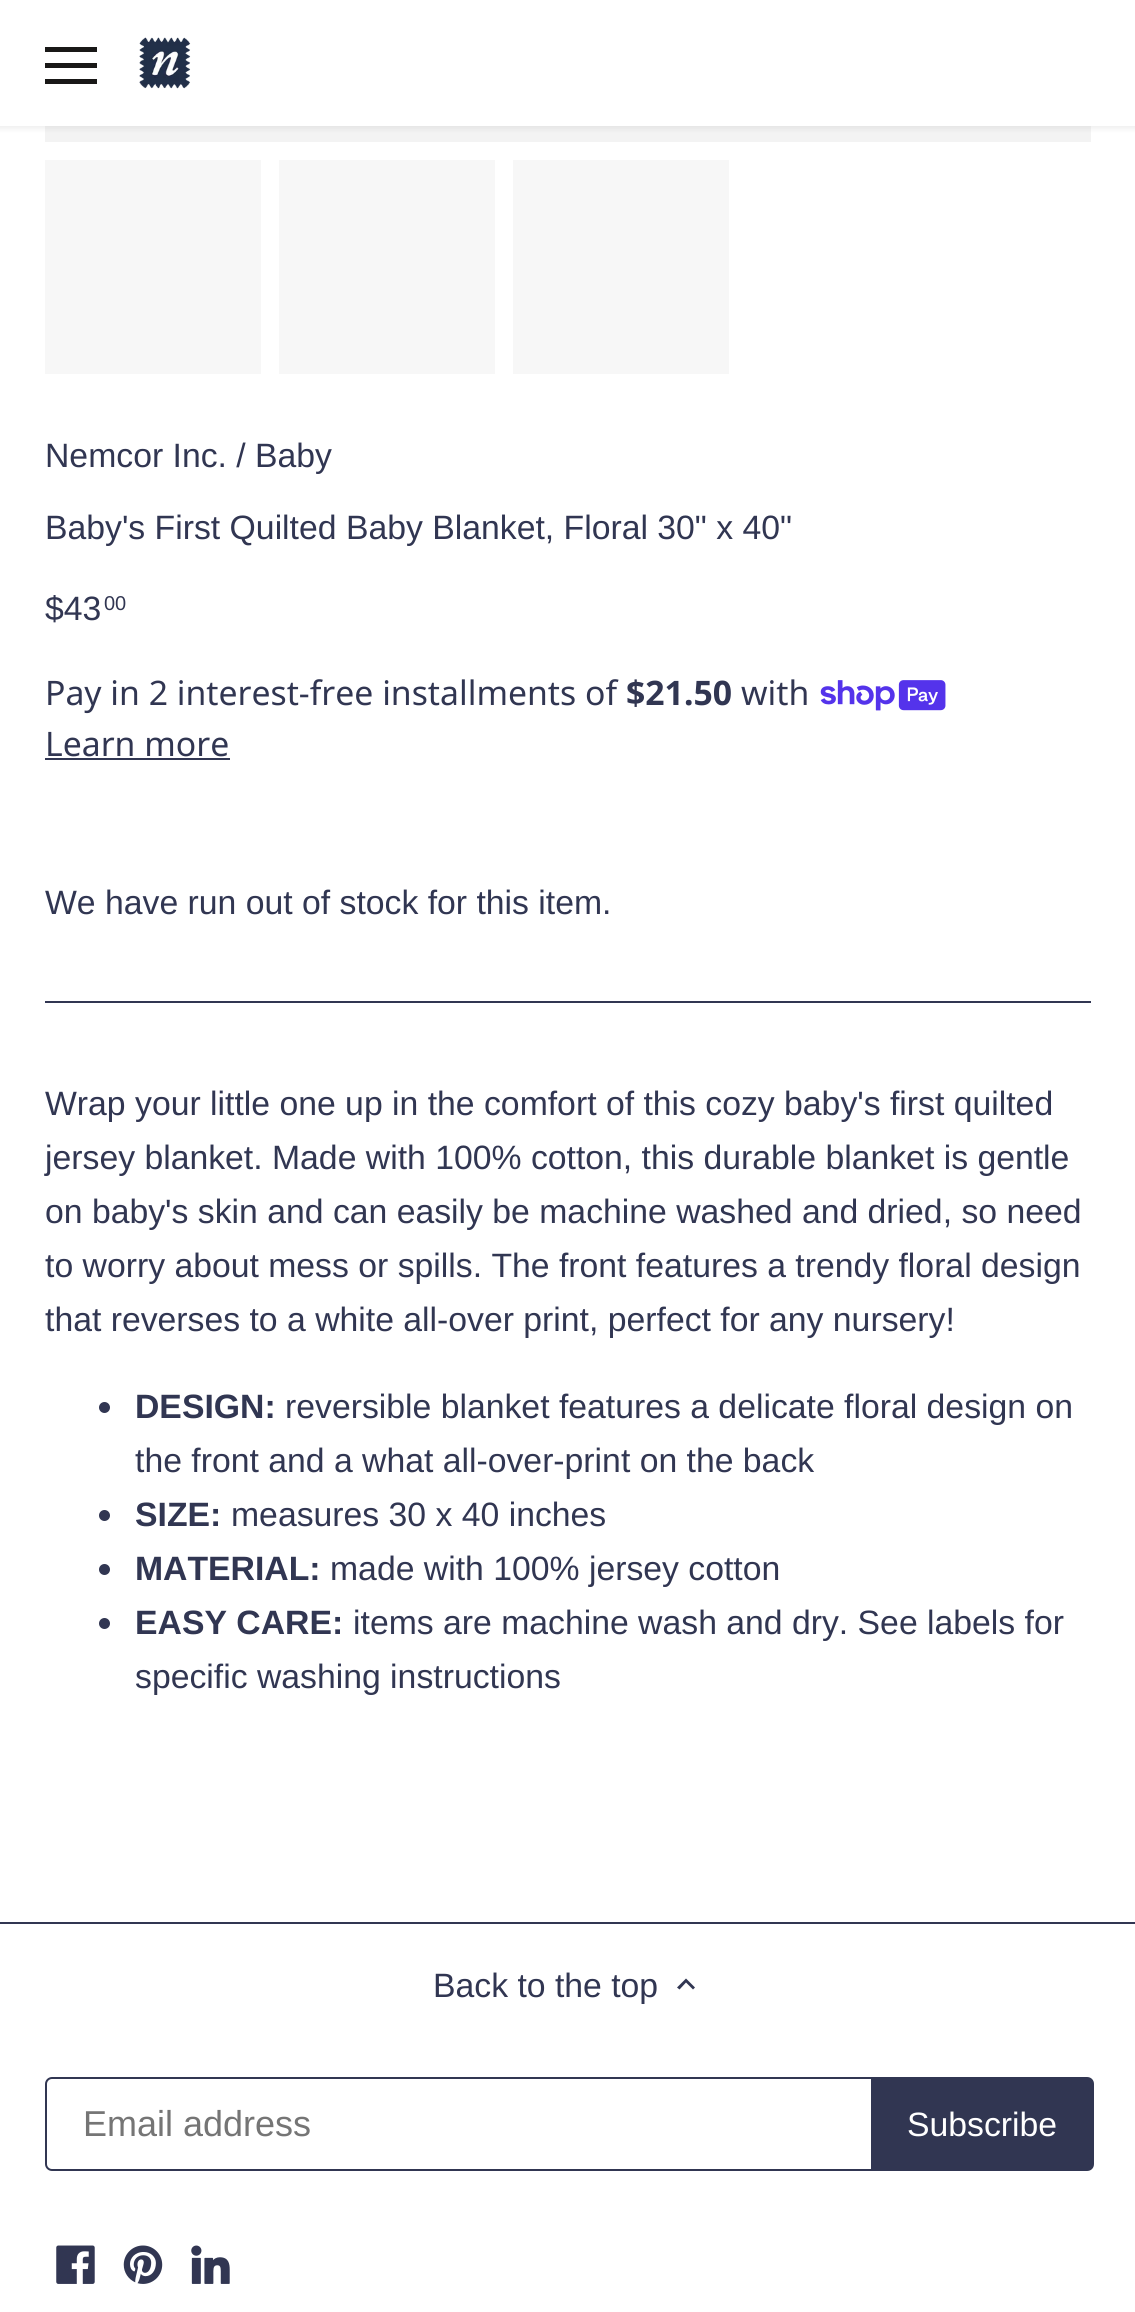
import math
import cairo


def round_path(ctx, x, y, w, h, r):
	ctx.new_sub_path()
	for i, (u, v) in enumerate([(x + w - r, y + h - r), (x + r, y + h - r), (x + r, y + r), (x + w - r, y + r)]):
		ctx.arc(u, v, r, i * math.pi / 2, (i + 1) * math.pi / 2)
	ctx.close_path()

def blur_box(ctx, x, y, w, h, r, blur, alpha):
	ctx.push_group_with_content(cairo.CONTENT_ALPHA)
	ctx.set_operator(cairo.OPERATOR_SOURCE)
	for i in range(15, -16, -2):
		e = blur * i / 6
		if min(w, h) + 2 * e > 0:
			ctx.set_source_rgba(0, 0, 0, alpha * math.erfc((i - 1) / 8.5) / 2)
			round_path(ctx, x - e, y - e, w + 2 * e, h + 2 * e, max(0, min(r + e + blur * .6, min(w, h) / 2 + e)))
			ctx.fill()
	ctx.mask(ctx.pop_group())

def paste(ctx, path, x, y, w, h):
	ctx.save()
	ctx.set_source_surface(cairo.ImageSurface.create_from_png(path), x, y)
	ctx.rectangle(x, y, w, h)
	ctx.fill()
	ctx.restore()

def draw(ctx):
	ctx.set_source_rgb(1, 1, 1)
	ctx.paint()
	ctx.set_source_rgb(0.953, 0.953, 0.953)
	ctx.rectangle(45, 126, 1046, 16)
	ctx.fill()
	ctx.set_source_rgb(0, 0, 0)
	blur_box(ctx, -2, -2, 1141, 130, 0, 3.5, 0.08)
	ctx.set_source_rgb(1, 1, 1)
	ctx.rectangle(0, 0, 1135, 126)
	ctx.fill()
	ctx.set_source_rgb(0.098, 0.094, 0.09)
	ctx.rectangle(45, 47, 52, 5)
	ctx.rectangle(45, 63, 52, 5)
	ctx.rectangle(45, 79, 52, 5)
	ctx.fill()
	paste(ctx, 'media/1.png', 139, 37, 52, 52)
	ctx.set_source_rgb(0.965, 0.965, 0.965)
	ctx.rectangle(45, 160, 216, 214)
	ctx.rectangle(279, 160, 216, 214)
	ctx.rectangle(513, 160, 216, 214)
	ctx.fill()
	ctx.select_font_face('Liberation Sans')
	ctx.set_font_size(33.75)
	ctx.set_source_rgb(0.192, 0.212, 0.322)
	for x, y, s in [
		(45, 467, 'Nemcor Inc. / Baby'),
		(45, 539, 'Baby\'s First Quilted Baby Blanket, Floral 30" x 40"'),
		(45, 620, '$43'),
	]:
		ctx.move_to(x, y)
		ctx.show_text(s)
	ctx.set_font_size(20)
	ctx.move_to(104, 610)
	ctx.show_text('00')
	ctx.select_font_face('Noto Sans')
	ctx.set_font_size(33.75)
	ctx.move_to(45, 705)
	ctx.show_text('Pay in 2 interest-free installments of')
	ctx.select_font_face('Noto Sans', cairo.FONT_SLANT_NORMAL, cairo.FONT_WEIGHT_BOLD)
	ctx.move_to(626, 705)
	ctx.show_text('$21.50')
	ctx.select_font_face('Noto Sans')
	ctx.move_to(741, 705)
	ctx.show_text('with')
	paste(ctx, 'media/2.png', 820, 680, 126, 31)
	ctx.move_to(45, 756)
	ctx.show_text('Learn more')
	ctx.rectangle(45, 758, 185, 2)
	ctx.fill()
	ctx.select_font_face('Liberation Sans')
	ctx.move_to(45, 914)
	ctx.show_text('We have run out of stock for this item.')
	ctx.rectangle(45, 1001, 1046, 2)
	ctx.fill()
	for x, y, s in [
		(45, 1115, 'Wrap your little one up in the comfort of this cozy baby\'s first quilted'),
		(45, 1169, 'jersey blanket. Made with 100% cotton, this durable blanket is gentle'),
		(45, 1223, 'on baby\'s skin and can easily be machine washed and dried, so need'),
		(45, 1277, 'to worry about mess or spills. The front features a trendy floral design'),
		(45, 1331, 'that reverses to a white all-over print, perfect for any nursery!'),
	]:
		ctx.move_to(x, y)
		ctx.show_text(s)
	ctx.new_path()
	ctx.arc(104.5, 1407.5, 5.5, 0, 2 * math.pi)
	ctx.fill()
	ctx.select_font_face('Liberation Sans', cairo.FONT_SLANT_NORMAL, cairo.FONT_WEIGHT_BOLD)
	ctx.move_to(135, 1418)
	ctx.show_text('DESIGN:')
	ctx.select_font_face('Liberation Sans')
	ctx.move_to(285, 1418)
	ctx.show_text('reversible blanket features a delicate floral design on')
	ctx.move_to(135, 1472)
	ctx.show_text('the front and a what all-over-print on the back')
	ctx.new_path()
	ctx.arc(104.5, 1515.5, 5.5, 0, 2 * math.pi)
	ctx.fill()
	ctx.select_font_face('Liberation Sans', cairo.FONT_SLANT_NORMAL, cairo.FONT_WEIGHT_BOLD)
	ctx.move_to(135, 1526)
	ctx.show_text('SIZE:')
	ctx.select_font_face('Liberation Sans')
	ctx.move_to(231, 1526)
	ctx.show_text('measures 30 x 40 inches')
	ctx.new_path()
	ctx.arc(104.5, 1569.5, 5.5, 0, 2 * math.pi)
	ctx.fill()
	ctx.select_font_face('Liberation Sans', cairo.FONT_SLANT_NORMAL, cairo.FONT_WEIGHT_BOLD)
	ctx.move_to(135, 1580)
	ctx.show_text('MATERIAL:')
	ctx.select_font_face('Liberation Sans')
	ctx.move_to(330, 1580)
	ctx.show_text('made with 100% jersey cotton')
	ctx.new_path()
	ctx.arc(104.5, 1623.5, 5.5, 0, 2 * math.pi)
	ctx.fill()
	ctx.select_font_face('Liberation Sans', cairo.FONT_SLANT_NORMAL, cairo.FONT_WEIGHT_BOLD)
	ctx.move_to(135, 1634)
	ctx.show_text('EASY CARE:')
	ctx.select_font_face('Liberation Sans')
	ctx.move_to(353, 1634)
	ctx.show_text('items are machine wash and dry. See labels for')
	ctx.move_to(135, 1688)
	ctx.show_text('specific washing instructions')
	ctx.rectangle(0, 1922, 1135, 2)
	ctx.fill()
	ctx.move_to(433, 1997)
	ctx.show_text('Back to the top')
	ctx.new_path()
	ctx.move_to(679.5, 1989.5)
	ctx.line_to(686, 1982.5)
	ctx.line_to(693, 1989.5)
	ctx.line_to(695, 1987.5)
	ctx.line_to(686, 1978.5)
	ctx.line_to(677, 1987.5)
	ctx.close_path()
	ctx.fill()
	round_path(ctx, 46, 2078, 1044, 92, 6)
	ctx.stroke()
	ctx.set_font_size(36)
	ctx.set_source_rgb(0.459, 0.459, 0.459)
	ctx.move_to(83, 2136)
	ctx.show_text('Email address')
	ctx.set_source_rgb(0.192, 0.212, 0.322)
	ctx.new_path()
	ctx.move_to(872, 2078)
	ctx.line_to(1087, 2078)
	ctx.curve_to(1090.5, 2078, 1093, 2080.5, 1093, 2084)
	ctx.line_to(1093, 2164)
	ctx.curve_to(1093, 2167.5, 1090.5, 2170, 1087, 2170)
	ctx.line_to(872, 2170)
	ctx.close_path()
	ctx.fill_preserve()
	ctx.stroke()
	ctx.set_font_size(33.75)
	ctx.set_source_rgb(1, 1, 1)
	ctx.move_to(907, 2136)
	ctx.show_text('Subscribe')
	paste(ctx, 'media/3.png', 56, 2245, 39, 39)
	paste(ctx, 'media/4.png', 123, 2245, 40, 39)
	paste(ctx, 'media/5.png', 191, 2245, 39, 39)


surface = cairo.ImageSurface(cairo.FORMAT_RGB24, 1135, 2312)
ctx = cairo.Context(surface)
options = cairo.FontOptions()
options.set_hint_metrics(cairo.HINT_METRICS_OFF)
options.set_hint_style(cairo.HINT_STYLE_NONE)
ctx.set_font_options(options)
ctx.set_miter_limit(4)
draw(ctx)
surface.write_to_png('image.png')
